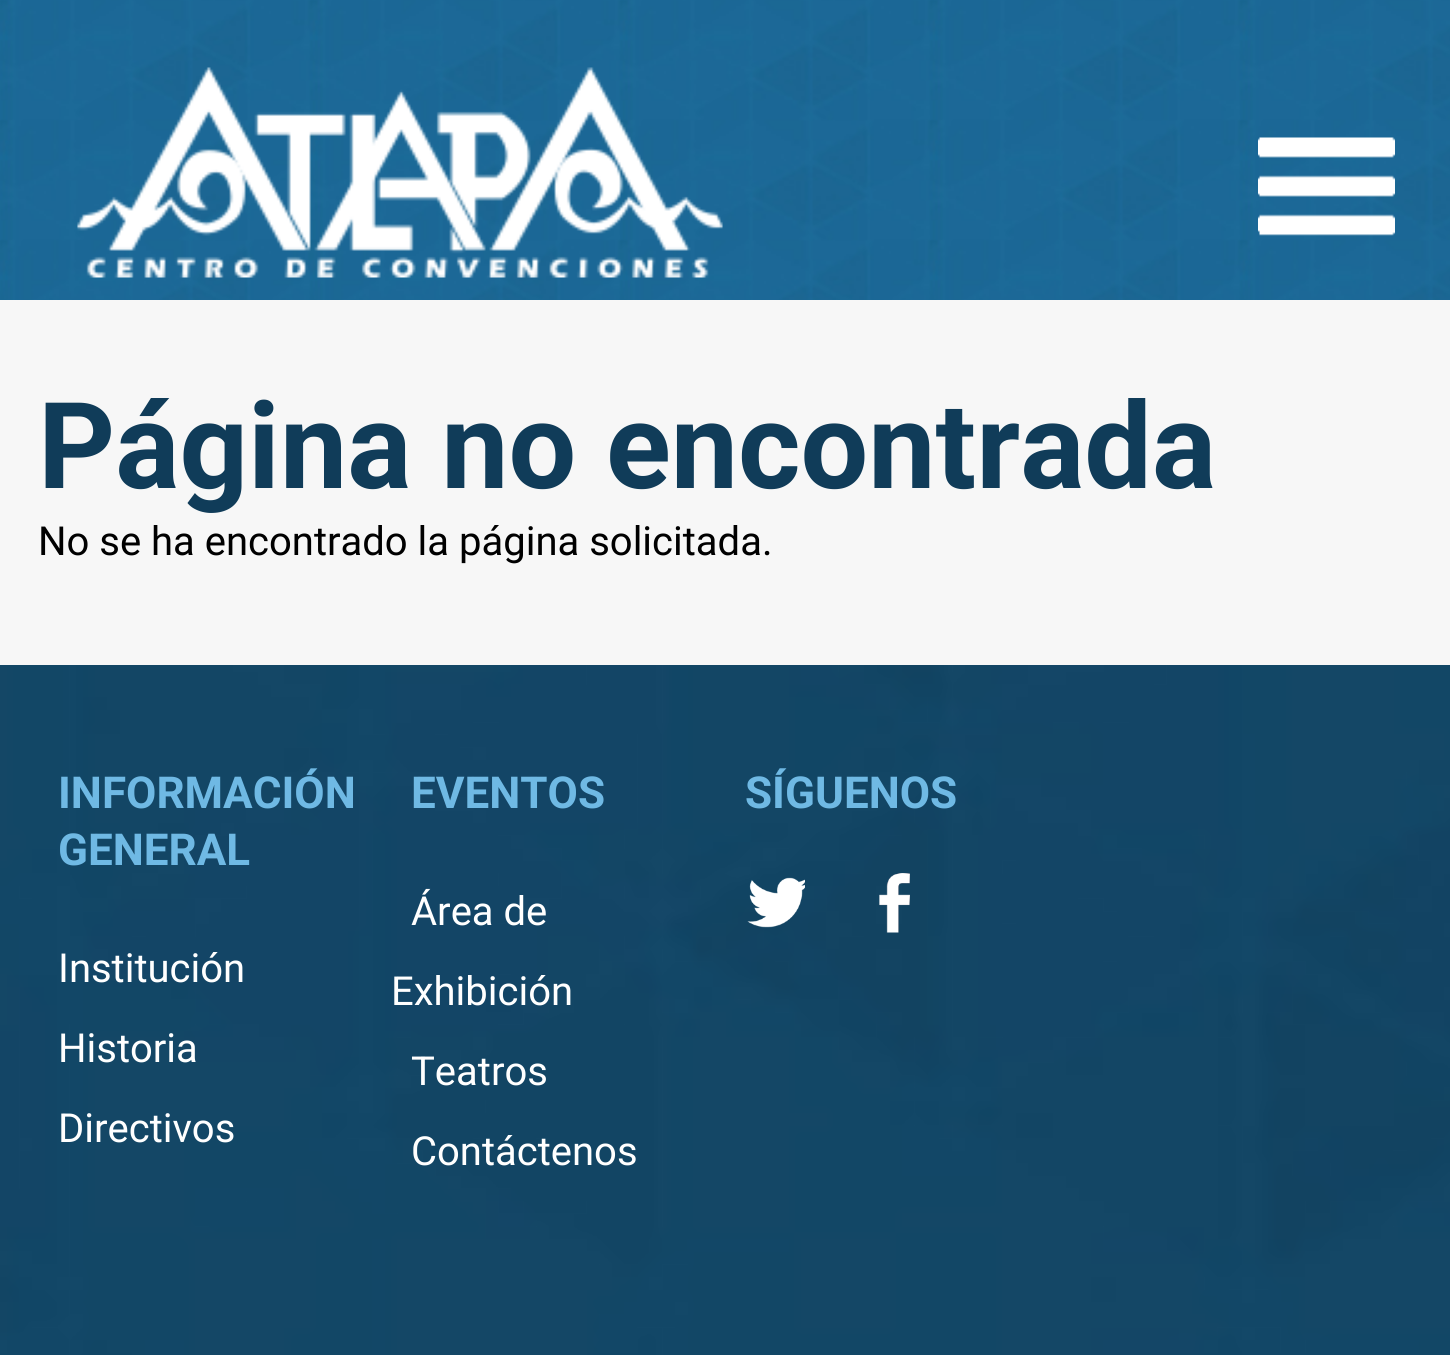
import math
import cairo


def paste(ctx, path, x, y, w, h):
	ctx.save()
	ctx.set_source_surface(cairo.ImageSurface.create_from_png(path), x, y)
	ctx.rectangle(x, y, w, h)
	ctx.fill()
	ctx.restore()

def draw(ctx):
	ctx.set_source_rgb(0.965, 0.965, 0.965)
	ctx.paint()
	paste(ctx, 'media/1.png', 0, 0, 1450, 300)
	paste(ctx, 'media/2.png', 77, 67, 646, 211)
	paste(ctx, 'media/3.png', 1258, 137, 137, 99)
	ctx.select_font_face('Roboto', cairo.FONT_SLANT_NORMAL, cairo.FONT_WEIGHT_BOLD)
	ctx.set_font_size(120)
	ctx.set_source_rgb(0.063, 0.235, 0.349)
	ctx.move_to(38, 488)
	ctx.show_text('Página no encontrada')
	ctx.select_font_face('Roboto')
	ctx.set_font_size(40)
	ctx.set_source_rgb(0, 0, 0)
	ctx.move_to(38, 555)
	ctx.show_text('No se ha encontrado la página solicitada.')
	paste(ctx, 'media/4.png', 0, 665, 1450, 690)
	ctx.select_font_face('Roboto', cairo.FONT_SLANT_NORMAL, cairo.FONT_WEIGHT_BOLD)
	ctx.set_font_size(44)
	ctx.set_source_rgb(0.435, 0.725, 0.894)
	ctx.move_to(58, 808)
	ctx.show_text('INFORMACIÓN')
	ctx.move_to(58, 865)
	ctx.show_text('GENERAL')
	ctx.select_font_face('Roboto')
	ctx.set_font_size(40)
	ctx.set_source_rgb(1, 1, 1)
	for x, y, s in [
		(58, 982, 'Institución'),
		(58, 1062, 'Historia'),
		(58, 1142, 'Directivos'),
	]:
		ctx.move_to(x, y)
		ctx.show_text(s)
	ctx.select_font_face('Roboto', cairo.FONT_SLANT_NORMAL, cairo.FONT_WEIGHT_BOLD)
	ctx.set_font_size(44)
	ctx.set_source_rgb(0.435, 0.725, 0.894)
	ctx.move_to(411, 808)
	ctx.show_text('EVENTOS')
	ctx.select_font_face('Roboto')
	ctx.set_font_size(40)
	ctx.set_source_rgb(1, 1, 1)
	for x, y, s in [
		(411, 925, 'Área de'),
		(391, 1005, 'Exhibición'),
		(411, 1085, 'Teatros'),
		(411, 1165, 'Contáctenos'),
	]:
		ctx.move_to(x, y)
		ctx.show_text(s)
	ctx.select_font_face('Roboto', cairo.FONT_SLANT_NORMAL, cairo.FONT_WEIGHT_BOLD)
	ctx.set_font_size(44)
	ctx.set_source_rgb(0.435, 0.725, 0.894)
	ctx.move_to(745, 808)
	ctx.show_text('SÍGUENOS')
	paste(ctx, 'media/5.png', 747, 877, 58, 51)
	paste(ctx, 'media/6.png', 879, 873, 31, 60)


surface = cairo.ImageSurface(cairo.FORMAT_RGB24, 1450, 1355)
ctx = cairo.Context(surface)
options = cairo.FontOptions()
options.set_hint_metrics(cairo.HINT_METRICS_OFF)
options.set_hint_style(cairo.HINT_STYLE_NONE)
ctx.set_font_options(options)
ctx.set_miter_limit(4)
draw(ctx)
surface.write_to_png('image.png')
